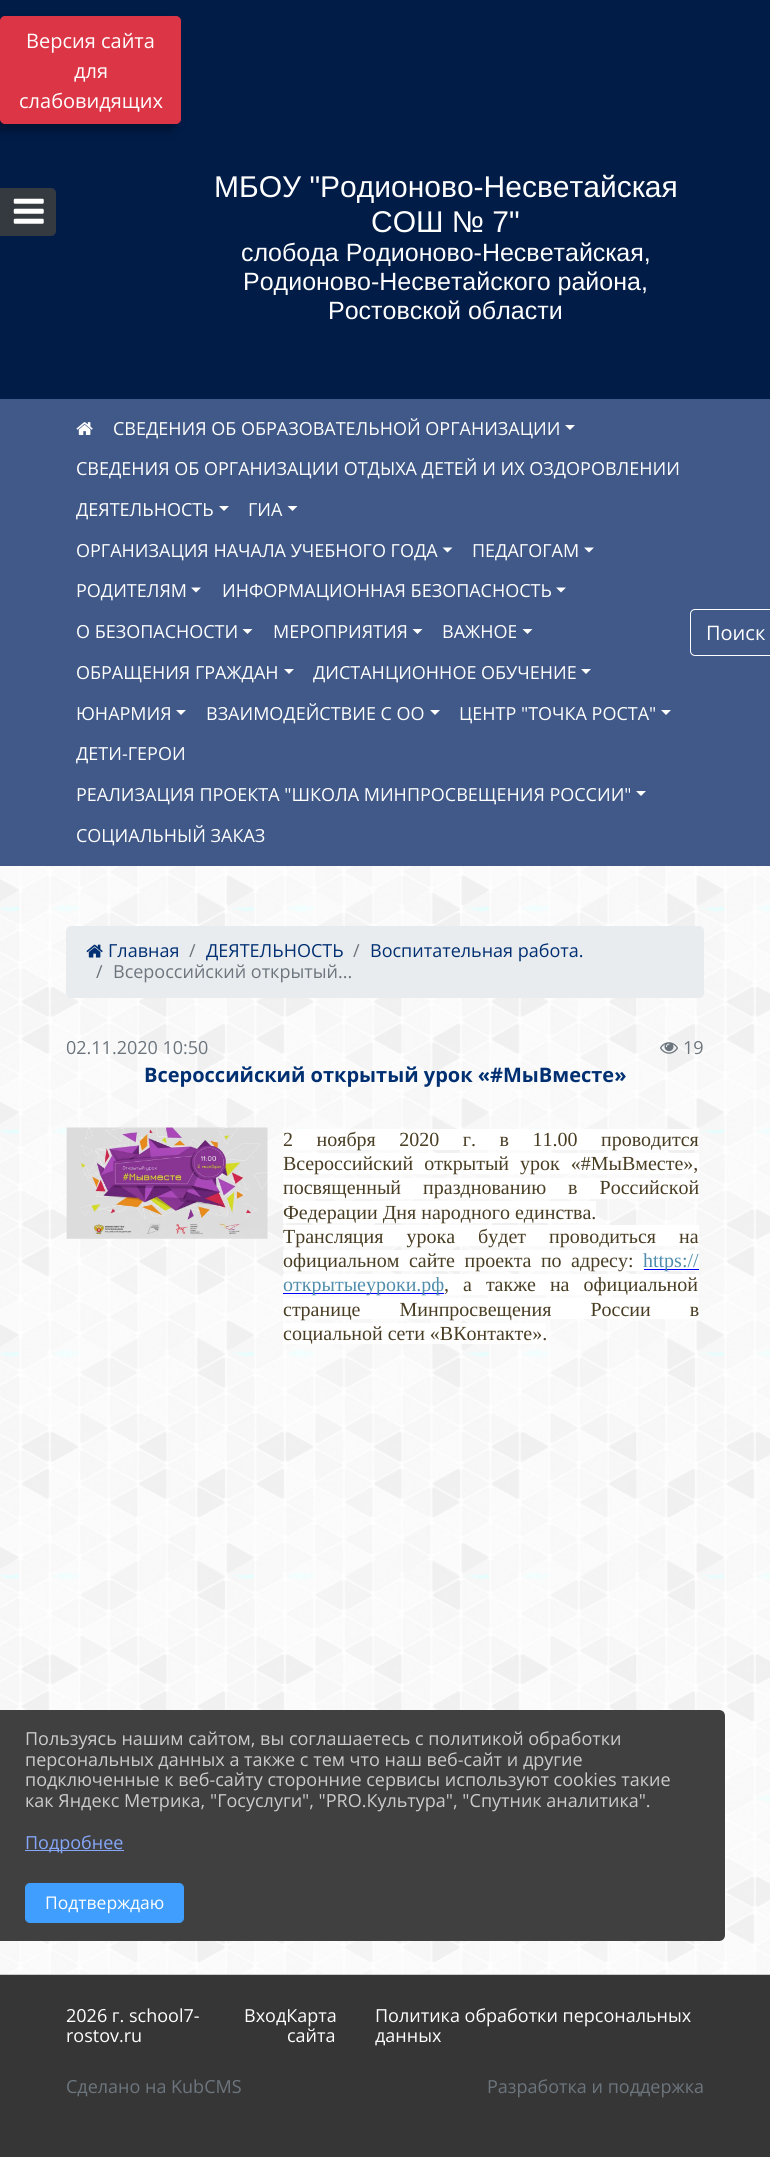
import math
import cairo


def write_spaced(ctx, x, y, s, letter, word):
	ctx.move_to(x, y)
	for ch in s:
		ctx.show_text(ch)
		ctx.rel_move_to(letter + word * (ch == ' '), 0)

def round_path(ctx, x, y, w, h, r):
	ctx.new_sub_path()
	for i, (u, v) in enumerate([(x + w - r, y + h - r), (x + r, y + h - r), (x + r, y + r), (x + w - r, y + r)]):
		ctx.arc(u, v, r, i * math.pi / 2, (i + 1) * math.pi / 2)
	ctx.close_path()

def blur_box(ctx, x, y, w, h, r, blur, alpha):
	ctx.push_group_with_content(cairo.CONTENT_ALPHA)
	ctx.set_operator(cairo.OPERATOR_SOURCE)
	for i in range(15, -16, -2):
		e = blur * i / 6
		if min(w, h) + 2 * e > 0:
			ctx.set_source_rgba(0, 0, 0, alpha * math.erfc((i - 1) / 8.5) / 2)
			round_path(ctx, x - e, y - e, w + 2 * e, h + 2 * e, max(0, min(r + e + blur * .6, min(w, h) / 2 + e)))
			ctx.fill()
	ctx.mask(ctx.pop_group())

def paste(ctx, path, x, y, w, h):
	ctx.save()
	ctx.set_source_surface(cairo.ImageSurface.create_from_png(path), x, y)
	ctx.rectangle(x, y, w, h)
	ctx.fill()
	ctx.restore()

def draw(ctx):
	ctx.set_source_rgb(1, 1, 1)
	ctx.paint()
	paste(ctx, 'media/1.png', 0, 866, 770, 1108)
	ctx.set_source_rgb(0, 0.11, 0.278)
	ctx.rectangle(0, 0, 770, 399)
	ctx.fill()
	ctx.set_source_rgb(0, 0, 0)
	blur_box(ctx, -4, 25, 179, 105, 4, 5, 0.35)
	ctx.set_source_rgb(0.863, 0.208, 0.271)
	round_path(ctx, 0.5, 16.5, 180, 107, 4.5)
	ctx.fill_preserve()
	ctx.set_line_width(1)
	ctx.stroke()
	ctx.select_font_face('Open Sans')
	ctx.set_font_size(20)
	ctx.set_source_rgb(1, 1, 1)
	for x, y, s in [
		(26, 48, 'Версия сайта'),
		(74, 78, 'для'),
		(19, 108, 'слабовидящих'),
	]:
		ctx.move_to(x, y)
		ctx.show_text(s)
	ctx.set_source_rgb(0.204, 0.227, 0.251)
	ctx.new_path()
	ctx.move_to(0.5, 188.5)
	ctx.line_to(51, 188.5)
	ctx.curve_to(53.5, 188.5, 55.5, 190.5, 55.5, 193)
	ctx.line_to(55.5, 231)
	ctx.curve_to(55.5, 233.5, 53.5, 235.5, 51, 235.5)
	ctx.line_to(0.5, 235.5)
	ctx.close_path()
	ctx.fill_preserve()
	ctx.stroke()
	paste(ctx, 'media/2.png', 13, 198, 31, 26)
	ctx.select_font_face('Liberation Sans')
	ctx.set_font_size(30)
	ctx.set_source_rgb(1, 1, 1)
	ctx.move_to(214, 197)
	ctx.show_text('МБОУ "Родионово-Несветайская')
	ctx.move_to(371, 232)
	ctx.show_text('СОШ № 7"')
	ctx.set_font_size(25)
	for x, y, s in [
		(241, 261, 'слобода Родионово-Несветайская,'),
		(243, 290, 'Родионово-Несветайского района,'),
		(328, 319, 'Ростовской области'),
	]:
		ctx.move_to(x, y)
		ctx.show_text(s)
	ctx.set_source_rgb(0.251, 0.349, 0.533)
	ctx.rectangle(0, 399, 770, 467)
	ctx.fill()
	paste(ctx, 'media/3.png', 76, 422, 17, 13)
	ctx.select_font_face('Open Sans')
	ctx.set_font_size(18)
	ctx.set_source_rgb(1, 1, 1)
	ctx.move_to(113, 435)
	ctx.show_text('СВЕДЕНИЯ ОБ ОБРАЗОВАТЕЛЬНОЙ ОРГАНИЗАЦИИ')
	ctx.new_path()
	ctx.move_to(565, 425)
	ctx.line_to(575, 425)
	ctx.line_to(570, 430)
	ctx.close_path()
	ctx.fill()
	ctx.move_to(76, 475)
	ctx.show_text('СВЕДЕНИЯ ОБ ОРГАНИЗАЦИИ ОТДЫХА ДЕТЕЙ И ИХ ОЗДОРОВЛЕНИИ')
	ctx.move_to(76, 516)
	ctx.show_text('ДЕЯТЕЛЬНОСТЬ')
	ctx.new_path()
	ctx.move_to(219, 506)
	ctx.line_to(229, 506)
	ctx.line_to(224, 511)
	ctx.close_path()
	ctx.fill()
	ctx.move_to(248, 516)
	ctx.show_text('ГИА')
	ctx.new_path()
	ctx.move_to(287.5, 506)
	ctx.line_to(297.5, 506)
	ctx.line_to(292.5, 511)
	ctx.close_path()
	ctx.fill()
	ctx.move_to(76, 557)
	ctx.show_text('ОРГАНИЗАЦИЯ НАЧАЛА УЧЕБНОГО ГОДА')
	ctx.new_path()
	ctx.move_to(442.5, 547.5)
	ctx.line_to(452.5, 547.5)
	ctx.line_to(447.5, 552.5)
	ctx.close_path()
	ctx.fill()
	ctx.move_to(472, 557)
	ctx.show_text('ПЕДАГОГАМ')
	ctx.new_path()
	ctx.move_to(584, 547.5)
	ctx.line_to(594, 547.5)
	ctx.line_to(589, 552.5)
	ctx.close_path()
	ctx.fill()
	ctx.move_to(76, 597)
	ctx.show_text('РОДИТЕЛЯМ')
	ctx.new_path()
	ctx.move_to(191, 587.5)
	ctx.line_to(201, 587.5)
	ctx.line_to(196, 592.5)
	ctx.close_path()
	ctx.fill()
	ctx.move_to(222, 597)
	ctx.show_text('ИНФОРМАЦИОННАЯ БЕЗОПАСНОСТЬ')
	ctx.new_path()
	ctx.move_to(556, 587.5)
	ctx.line_to(566, 587.5)
	ctx.line_to(561, 592.5)
	ctx.close_path()
	ctx.fill()
	ctx.move_to(76, 638)
	ctx.show_text('О БЕЗОПАСНОСТИ')
	ctx.new_path()
	ctx.move_to(242.5, 629)
	ctx.line_to(252.5, 629)
	ctx.line_to(247.5, 634)
	ctx.close_path()
	ctx.fill()
	ctx.move_to(273, 638)
	ctx.show_text('МЕРОПРИЯТИЯ')
	ctx.new_path()
	ctx.move_to(412.5, 629)
	ctx.line_to(422.5, 629)
	ctx.line_to(417.5, 634)
	ctx.close_path()
	ctx.fill()
	ctx.move_to(442, 638)
	ctx.show_text('ВАЖНОЕ')
	ctx.new_path()
	ctx.move_to(522.5, 629)
	ctx.line_to(532.5, 629)
	ctx.line_to(527.5, 634)
	ctx.close_path()
	ctx.fill()
	ctx.move_to(76, 679)
	ctx.show_text('ОБРАЩЕНИЯ ГРАЖДАН')
	ctx.new_path()
	ctx.move_to(284, 669)
	ctx.line_to(294, 669)
	ctx.line_to(289, 674)
	ctx.close_path()
	ctx.fill()
	ctx.move_to(313, 679)
	ctx.show_text('ДИСТАНЦИОННОЕ ОБУЧЕНИЕ')
	ctx.new_path()
	ctx.move_to(581, 669)
	ctx.line_to(591, 669)
	ctx.line_to(586, 674)
	ctx.close_path()
	ctx.fill()
	ctx.move_to(76, 720)
	ctx.show_text('ЮНАРМИЯ')
	ctx.new_path()
	ctx.move_to(176, 710)
	ctx.line_to(186, 710)
	ctx.line_to(181, 715)
	ctx.close_path()
	ctx.fill()
	ctx.move_to(206, 720)
	ctx.show_text('ВЗАИМОДЕЙСТВИЕ С ОО')
	ctx.new_path()
	ctx.move_to(430, 710)
	ctx.line_to(440, 710)
	ctx.line_to(435, 715)
	ctx.close_path()
	ctx.fill()
	ctx.move_to(459, 720)
	ctx.show_text('ЦЕНТР "ТОЧКА РОСТА"')
	ctx.new_path()
	ctx.move_to(661, 710)
	ctx.line_to(671, 710)
	ctx.line_to(666, 715)
	ctx.close_path()
	ctx.fill()
	ctx.move_to(76, 760)
	ctx.show_text('ДЕТИ-ГЕРОИ')
	ctx.move_to(76, 801)
	ctx.show_text('РЕАЛИЗАЦИЯ ПРОЕКТА "ШКОЛА МИНПРОСВЕЩЕНИЯ РОССИИ"')
	ctx.new_path()
	ctx.move_to(636, 791)
	ctx.line_to(646, 791)
	ctx.line_to(641, 796)
	ctx.close_path()
	ctx.fill()
	ctx.move_to(76, 842)
	ctx.show_text('СОЦИАЛЬНЫЙ ЗАКАЗ')
	round_path(ctx, 690.5, 609.5, 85, 46, 4.5)
	ctx.stroke()
	ctx.set_font_size(20)
	ctx.move_to(706, 640)
	ctx.show_text('Поиск')
	ctx.set_source_rgb(0.914, 0.925, 0.937)
	round_path(ctx, 66, 926, 638, 72, 5)
	ctx.fill()
	paste(ctx, 'media/4.png', 86, 944, 17, 14)
	ctx.set_font_size(18)
	ctx.set_source_rgb(0, 0.184, 0.447)
	ctx.move_to(108, 957)
	ctx.show_text('Главная')
	ctx.set_source_rgb(0.424, 0.459, 0.49)
	ctx.move_to(189, 957)
	ctx.show_text('/')
	ctx.set_source_rgb(0, 0.184, 0.447)
	ctx.move_to(206, 957)
	ctx.show_text('ДЕЯТЕЛЬНОСТЬ')
	ctx.set_source_rgb(0.424, 0.459, 0.49)
	ctx.move_to(353, 957)
	ctx.show_text('/')
	ctx.set_source_rgb(0, 0.184, 0.447)
	ctx.move_to(370, 957)
	ctx.show_text('Воспитательная работа.')
	ctx.set_source_rgb(0.424, 0.459, 0.49)
	for x, y, s in [
		(96, 978, '/'),
		(113, 978, 'Всероссийский открытый...'),
		(66, 1054, '02.11.2020 10:50'),
	]:
		ctx.move_to(x, y)
		ctx.show_text(s)
	paste(ctx, 'media/5.png', 660, 1042, 18, 12)
	ctx.move_to(683, 1054)
	ctx.show_text('19')
	ctx.select_font_face('Open Sans', cairo.FONT_SLANT_NORMAL, cairo.FONT_WEIGHT_BOLD)
	ctx.set_font_size(20)
	ctx.set_source_rgb(0, 0.184, 0.447)
	ctx.move_to(144, 1082)
	ctx.show_text('Всероссийский открытый урок «#МыВместе»')
	paste(ctx, 'media/6.png', 66, 1127, 202, 112)
	ctx.set_source_rgb(1, 1, 1)
	ctx.rectangle(283, 1129, 416, 21)
	ctx.fill()
	ctx.select_font_face('Liberation Serif')
	ctx.set_source_rgb(0.286, 0.243, 0.141)
	write_spaced(ctx, 283, 1146, '2 ноября 2020 г. в 11.00 проводится', 0, 18.5)
	ctx.set_source_rgb(1, 1, 1)
	ctx.rectangle(283, 1153, 416, 21)
	ctx.fill()
	ctx.set_source_rgb(0.286, 0.243, 0.141)
	write_spaced(ctx, 283, 1170, 'Всероссийский открытый урок «#МыВместе»,', 0, 6)
	ctx.set_source_rgb(1, 1, 1)
	ctx.rectangle(283, 1178, 416, 21)
	ctx.fill()
	ctx.set_source_rgb(0.286, 0.243, 0.141)
	write_spaced(ctx, 283, 1194, 'посвященный празднованию в Российской', 0, 17)
	ctx.set_source_rgb(1, 1, 1)
	ctx.rectangle(283, 1201, 313, 22)
	ctx.fill()
	ctx.set_source_rgb(0.286, 0.243, 0.141)
	ctx.move_to(283, 1219)
	ctx.show_text('Федерации Дня народного единства.')
	ctx.set_source_rgb(1, 1, 1)
	ctx.rectangle(283, 1225, 416, 21)
	ctx.fill()
	ctx.set_source_rgb(0.286, 0.243, 0.141)
	write_spaced(ctx, 283, 1243, 'Трансляция урока будет проводиться на', 0, 18)
	ctx.set_source_rgb(1, 1, 1)
	ctx.rectangle(283, 1250, 416, 21)
	ctx.fill()
	ctx.set_source_rgb(0.286, 0.243, 0.141)
	write_spaced(ctx, 283, 1267, 'официальном сайте проекта по адресу:', 0, 4.5)
	ctx.set_source_rgb(0, 0, 1)
	ctx.rectangle(644, 1269, 55, 1)
	ctx.fill()
	ctx.set_source_rgb(0.318, 0.557, 0.678)
	ctx.move_to(643, 1267)
	ctx.show_text('https://')
	ctx.set_source_rgb(1, 1, 1)
	ctx.rectangle(283, 1274, 416, 21)
	ctx.fill()
	ctx.set_source_rgb(0, 0, 1)
	ctx.rectangle(283, 1293, 161, 1)
	ctx.fill()
	ctx.set_source_rgb(0.318, 0.557, 0.678)
	ctx.move_to(283, 1291)
	ctx.show_text('открытыеуроки.рф')
	ctx.set_source_rgb(0.286, 0.243, 0.141)
	write_spaced(ctx, 444, 1291, ', а также на официальной', 0, 9)
	ctx.set_source_rgb(1, 1, 1)
	ctx.rectangle(283, 1298, 416, 21)
	ctx.fill()
	ctx.set_source_rgb(0.286, 0.243, 0.141)
	write_spaced(ctx, 283, 1316, 'странице Минпросвещения России в', 0, 34)
	ctx.set_source_rgb(1, 1, 1)
	ctx.rectangle(283, 1323, 263, 21)
	ctx.fill()
	ctx.set_source_rgb(0.286, 0.243, 0.141)
	ctx.move_to(283, 1340)
	ctx.show_text('социальной сети «ВКонтакте».')
	ctx.set_source_rgb(0.216, 0.212, 0.212)
	ctx.rectangle(0, 1975, 770, 182)
	ctx.fill()
	ctx.set_source_rgb(0.8, 0.8, 0.8)
	ctx.rectangle(0, 1974, 770, 1)
	ctx.fill()
	ctx.select_font_face('Open Sans')
	ctx.set_font_size(18)
	ctx.set_source_rgb(1, 1, 1)
	for x, y, s in [
		(66, 2022, '2026 г. school7-'),
		(66, 2042, 'rostov.ru'),
		(244, 2022, 'ВходКарта'),
		(375, 2022, 'Политика обработки персональных'),
		(375, 2042, 'данных'),
		(287, 2042, 'сайта'),
	]:
		ctx.move_to(x, y)
		ctx.show_text(s)
	ctx.set_source_rgb(0.424, 0.459, 0.49)
	ctx.move_to(66, 2093)
	ctx.show_text('Сделано на KubCMS')
	ctx.move_to(487, 2093)
	ctx.show_text('Разработка и поддержка')
	ctx.set_source_rgb(0.251, 0.251, 0.251)
	ctx.new_path()
	ctx.move_to(0, 1710)
	ctx.line_to(719, 1710)
	ctx.curve_to(722.5, 1710, 725, 1712.5, 725, 1716)
	ctx.line_to(725, 1935)
	ctx.curve_to(725, 1938.5, 722.5, 1941, 719, 1941)
	ctx.line_to(0, 1941)
	ctx.close_path()
	ctx.fill()
	ctx.set_source_rgb(0.8, 0.8, 0.8)
	for x, y, s in [
		(25, 1745, 'Пользуясь нашим сайтом, вы соглашаетесь с политикой обработки'),
		(25, 1766, 'персональных данных а также с тем что наш веб-сайт и другие'),
		(25, 1786, 'подключенные к веб-сайту сторонние сервисы используют cookies такие'),
		(25, 1807, 'как Яндекс Метрика, "Госуслуги", "PRO.Культура", "Спутник аналитика".'),
	]:
		ctx.move_to(x, y)
		ctx.show_text(s)
	ctx.set_source_rgb(0.522, 0.651, 0.976)
	ctx.rectangle(25, 1850, 99, 1)
	ctx.fill()
	ctx.move_to(25, 1849)
	ctx.show_text('Подробнее')
	ctx.set_source_rgb(0.251, 0.62, 1)
	round_path(ctx, 25.5, 1883.5, 158, 39, 4.5)
	ctx.fill_preserve()
	ctx.stroke()
	ctx.set_font_size(17.5)
	ctx.set_source_rgb(1, 1, 1)
	ctx.move_to(45, 1909)
	ctx.show_text('Подтверждаю')


surface = cairo.ImageSurface(cairo.FORMAT_RGB24, 770, 2157)
ctx = cairo.Context(surface)
options = cairo.FontOptions()
options.set_hint_metrics(cairo.HINT_METRICS_OFF)
options.set_hint_style(cairo.HINT_STYLE_NONE)
ctx.set_font_options(options)
ctx.set_miter_limit(4)
draw(ctx)
surface.write_to_png('image.png')
